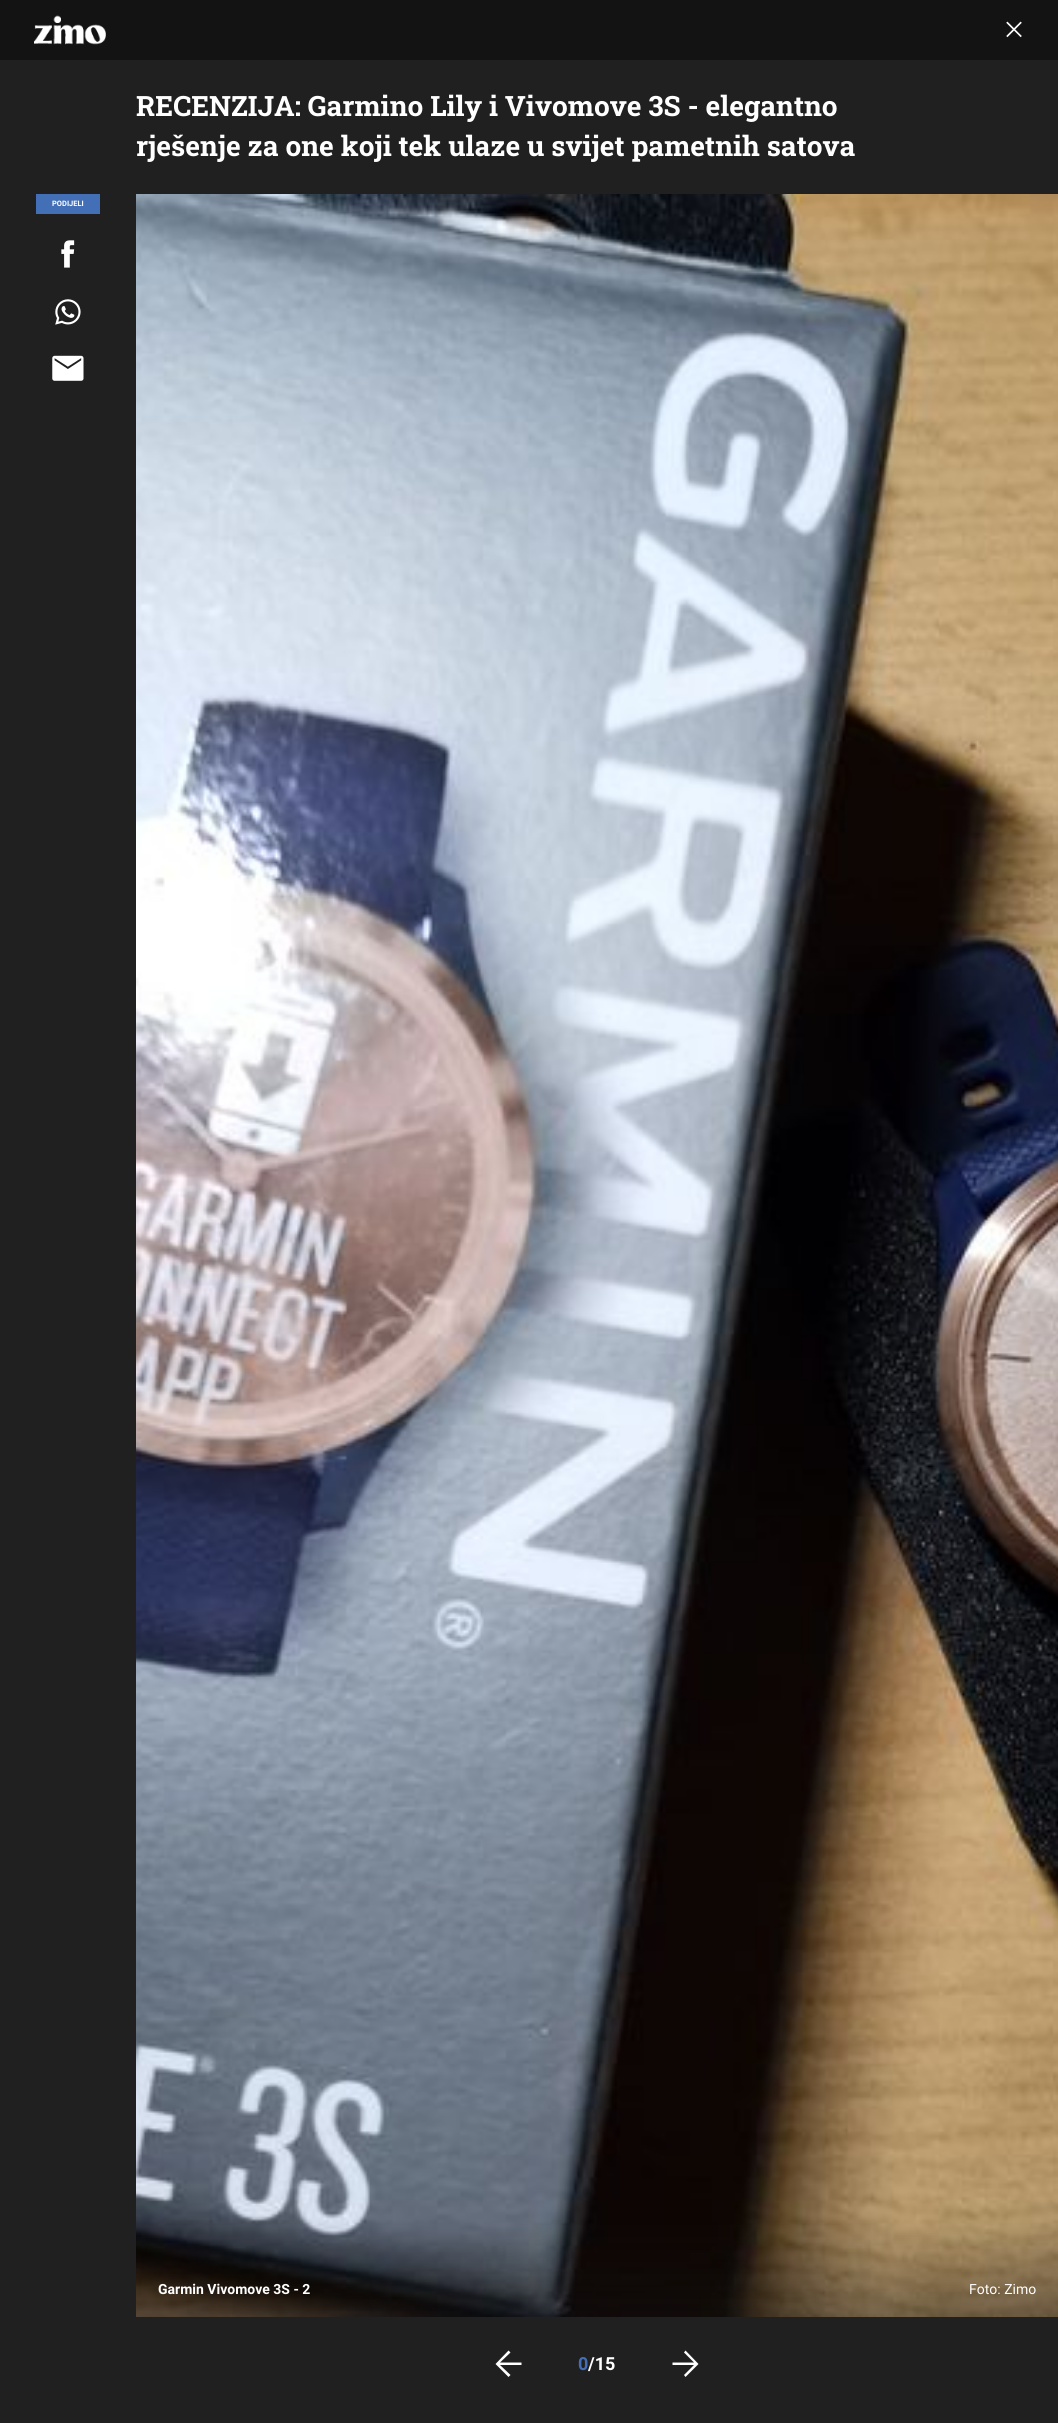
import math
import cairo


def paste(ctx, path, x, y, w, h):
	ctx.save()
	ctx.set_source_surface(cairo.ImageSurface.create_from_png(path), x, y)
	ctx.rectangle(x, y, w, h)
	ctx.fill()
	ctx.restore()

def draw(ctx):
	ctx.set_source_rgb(0.125, 0.125, 0.125)
	ctx.paint()
	ctx.set_source_rgb(0.078, 0.078, 0.078)
	ctx.rectangle(0, 0, 1058, 60)
	ctx.fill()
	paste(ctx, 'media/1.png', 34, 15, 72, 30)
	paste(ctx, 'media/2.png', 1006, 21, 16, 17)
	ctx.select_font_face('Roboto Slab', cairo.FONT_SLANT_NORMAL, cairo.FONT_WEIGHT_BOLD)
	ctx.set_font_size(28)
	ctx.set_source_rgb(1, 1, 1)
	ctx.move_to(136, 116)
	ctx.show_text('RECENZIJA: Garmino Lily i Vivomove 3S - elegantno')
	ctx.move_to(136, 156)
	ctx.show_text('rješenje za one koji tek ulaze u svijet pametnih satova')
	ctx.set_source_rgb(0.259, 0.435, 0.71)
	ctx.rectangle(36, 194, 64, 20)
	ctx.fill()
	ctx.select_font_face('Roboto', cairo.FONT_SLANT_NORMAL, cairo.FONT_WEIGHT_BOLD)
	ctx.set_font_size(7.5)
	ctx.set_source_rgb(1, 1, 1)
	ctx.move_to(52, 206)
	ctx.show_text('PODIJELI')
	paste(ctx, 'media/3.png', 61, 240, 14, 28)
	paste(ctx, 'media/4.png', 55, 299, 26, 26)
	paste(ctx, 'media/5.png', 52, 355, 32, 26)
	paste(ctx, 'media/6.png', 136, 194, 922, 2123)
	ctx.set_font_size(14)
	ctx.move_to(158, 2294)
	ctx.show_text('Garmin Vivomove 3S - 2')
	ctx.select_font_face('Roboto')
	ctx.move_to(969, 2294)
	ctx.show_text('Foto: Zimo')
	ctx.new_path()
	ctx.move_to(508.5, 2377)
	ctx.line_to(510.5, 2375)
	ctx.line_to(500, 2365)
	ctx.line_to(521.5, 2365)
	ctx.line_to(521.5, 2362.5)
	ctx.line_to(500, 2362.5)
	ctx.line_to(510.5, 2352.5)
	ctx.line_to(508.5, 2350.5)
	ctx.line_to(495.5, 2364)
	ctx.close_path()
	ctx.fill()
	ctx.select_font_face('Roboto', cairo.FONT_SLANT_NORMAL, cairo.FONT_WEIGHT_BOLD)
	ctx.set_font_size(18)
	ctx.set_source_rgb(0.259, 0.435, 0.71)
	ctx.move_to(578, 2370)
	ctx.show_text('0')
	ctx.set_source_rgb(1, 1, 1)
	ctx.move_to(588, 2370)
	ctx.show_text('/15')
	ctx.new_path()
	ctx.move_to(685.5, 2377)
	ctx.line_to(684, 2375)
	ctx.line_to(694, 2365)
	ctx.line_to(672.5, 2365)
	ctx.line_to(672.5, 2362.5)
	ctx.line_to(694, 2362.5)
	ctx.line_to(684, 2352.5)
	ctx.line_to(685.5, 2350.5)
	ctx.line_to(698.5, 2364)
	ctx.close_path()
	ctx.fill()


surface = cairo.ImageSurface(cairo.FORMAT_RGB24, 1058, 2423)
ctx = cairo.Context(surface)
options = cairo.FontOptions()
options.set_hint_metrics(cairo.HINT_METRICS_OFF)
options.set_hint_style(cairo.HINT_STYLE_NONE)
ctx.set_font_options(options)
ctx.set_miter_limit(4)
draw(ctx)
surface.write_to_png('image.png')
